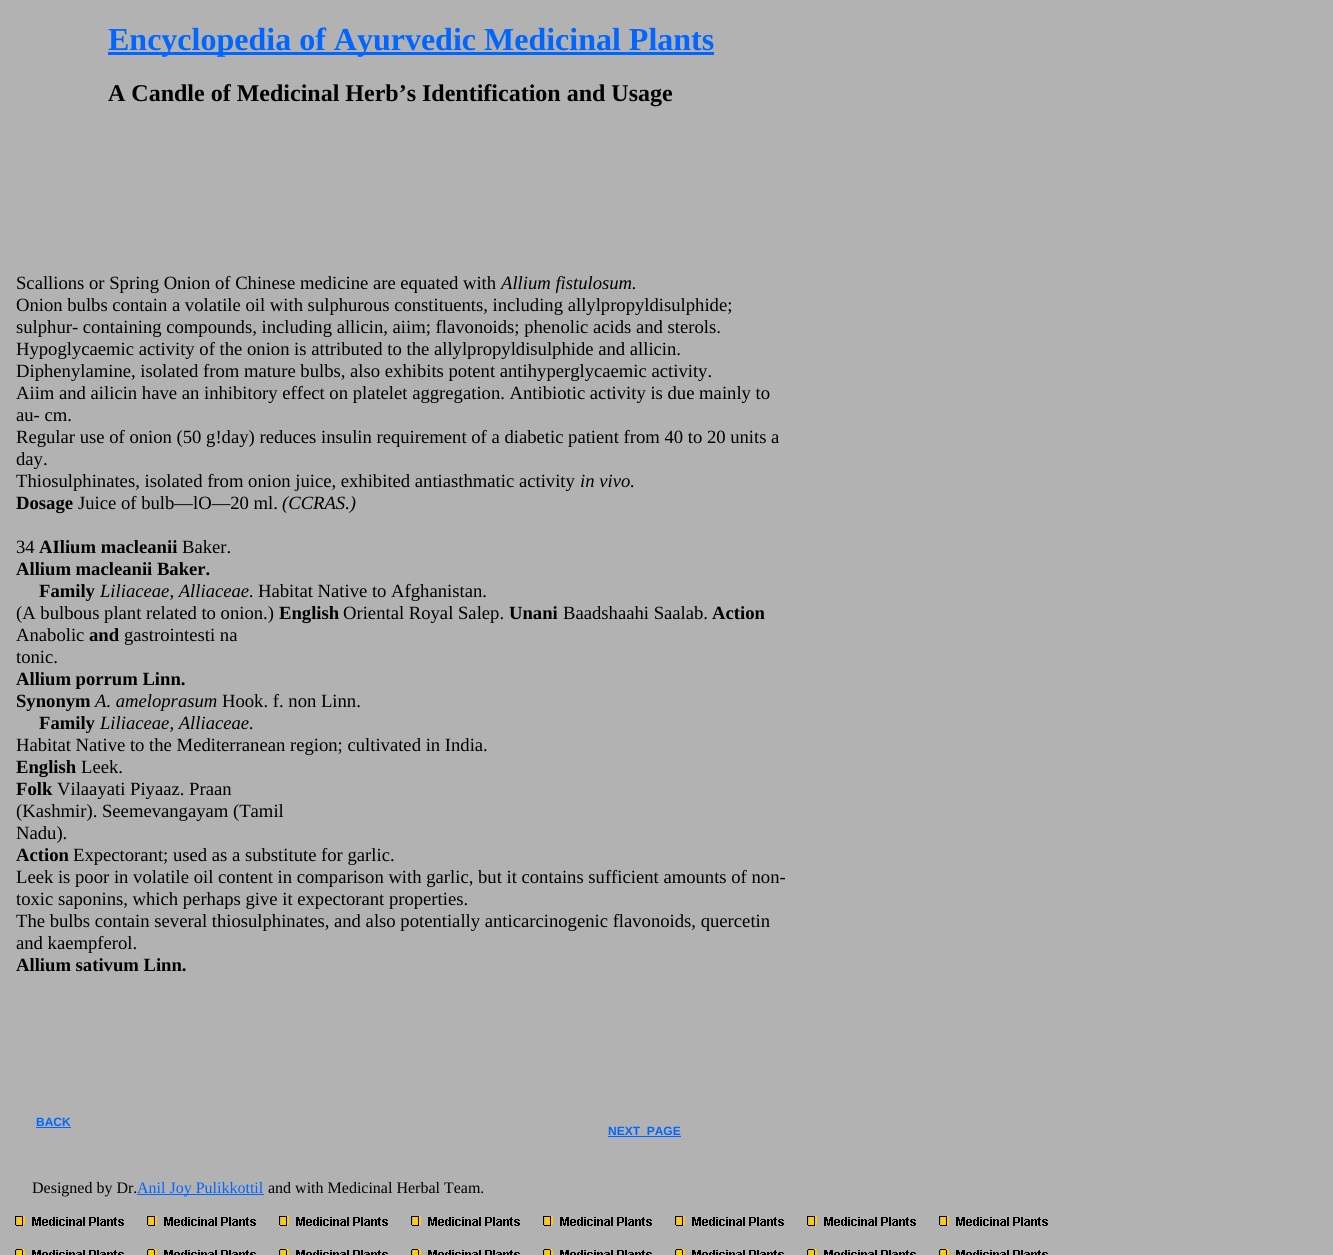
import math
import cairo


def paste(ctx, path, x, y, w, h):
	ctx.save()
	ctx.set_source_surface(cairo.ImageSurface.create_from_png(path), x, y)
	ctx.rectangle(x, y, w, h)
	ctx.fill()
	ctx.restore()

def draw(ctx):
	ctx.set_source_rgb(0.698, 0.698, 0.698)
	ctx.paint()
	ctx.set_source_rgb(0, 0.4, 1)
	ctx.rectangle(108, 52, 606, 3)
	ctx.fill()
	ctx.select_font_face('Liberation Serif', cairo.FONT_SLANT_NORMAL, cairo.FONT_WEIGHT_BOLD)
	ctx.set_font_size(32)
	ctx.move_to(108, 50)
	ctx.show_text('Encyclopedia of Ayurvedic Medicinal Plants')
	ctx.set_font_size(24)
	ctx.set_source_rgb(0, 0, 0)
	ctx.move_to(108, 101)
	ctx.show_text('A Candle of Medicinal Herb’s Identification and Usage')
	ctx.select_font_face('Liberation Serif')
	ctx.set_font_size(18.65)
	ctx.move_to(16, 289)
	ctx.show_text('Scallions or Spring Onion of Chinese medicine are equated with')
	ctx.select_font_face('Liberation Serif', cairo.FONT_SLANT_ITALIC)
	ctx.move_to(501, 289)
	ctx.show_text('Allium fistulosum.')
	ctx.select_font_face('Liberation Serif')
	for x, y, s in [
		(16, 311, 'Onion bulbs contain a volatile oil with sulphurous constituents, including allylpropyldisulphide;'),
		(16, 333, 'sulphur- containing compounds, including allicin, aiim; flavonoids; phenolic acids and sterols.'),
		(16, 355, 'Hypoglycaemic activity of the onion is attributed to the allylpropyldisulphide and allicin.'),
		(16, 377, 'Diphenylamine, isolated from mature bulbs, also exhibits potent antihyperglycaemic activity.'),
		(16, 399, 'Aiim and ailicin have an inhibitory effect on platelet aggregation. Antibiotic activity is due mainly to'),
		(16, 421, 'au- cm.'),
		(16, 443, 'Regular use of onion (50 g!day) reduces insulin requirement of a diabetic patient from 40 to 20 units a'),
		(16, 465, 'day.'),
		(16, 487, 'Thiosulphinates, isolated from onion juice, exhibited antiasthmatic activity'),
	]:
		ctx.move_to(x, y)
		ctx.show_text(s)
	ctx.select_font_face('Liberation Serif', cairo.FONT_SLANT_ITALIC)
	ctx.move_to(580, 487)
	ctx.show_text('in vivo.')
	ctx.select_font_face('Liberation Serif', cairo.FONT_SLANT_NORMAL, cairo.FONT_WEIGHT_BOLD)
	ctx.move_to(16, 509)
	ctx.show_text('Dosage')
	ctx.select_font_face('Liberation Serif')
	ctx.move_to(78, 509)
	ctx.show_text('Juice of bulb—lO—20 ml.')
	ctx.select_font_face('Liberation Serif', cairo.FONT_SLANT_ITALIC)
	ctx.move_to(282, 509)
	ctx.show_text('(CCRAS.)')
	ctx.select_font_face('Liberation Serif')
	ctx.move_to(16, 553)
	ctx.show_text('34')
	ctx.select_font_face('Liberation Serif', cairo.FONT_SLANT_NORMAL, cairo.FONT_WEIGHT_BOLD)
	ctx.move_to(39, 553)
	ctx.show_text('AIlium macleanii')
	ctx.select_font_face('Liberation Serif')
	ctx.move_to(182, 553)
	ctx.show_text('Baker.')
	ctx.select_font_face('Liberation Serif', cairo.FONT_SLANT_NORMAL, cairo.FONT_WEIGHT_BOLD)
	ctx.move_to(16, 575)
	ctx.show_text('Allium macleanii Baker.')
	ctx.move_to(39, 597)
	ctx.show_text('Family')
	ctx.select_font_face('Liberation Serif', cairo.FONT_SLANT_ITALIC)
	ctx.move_to(100, 597)
	ctx.show_text('Liliaceae, Alliaceae.')
	ctx.select_font_face('Liberation Serif')
	ctx.move_to(258, 597)
	ctx.show_text('Habitat Native to Afghanistan.')
	ctx.move_to(16, 619)
	ctx.show_text('(A bulbous plant related to onion.)')
	ctx.select_font_face('Liberation Serif', cairo.FONT_SLANT_NORMAL, cairo.FONT_WEIGHT_BOLD)
	ctx.move_to(279, 619)
	ctx.show_text('English')
	ctx.select_font_face('Liberation Serif')
	ctx.move_to(343, 619)
	ctx.show_text('Oriental Royal Salep.')
	ctx.select_font_face('Liberation Serif', cairo.FONT_SLANT_NORMAL, cairo.FONT_WEIGHT_BOLD)
	ctx.move_to(509, 619)
	ctx.show_text('Unani')
	ctx.select_font_face('Liberation Serif')
	ctx.move_to(563, 619)
	ctx.show_text('Baadshaahi Saalab.')
	ctx.select_font_face('Liberation Serif', cairo.FONT_SLANT_NORMAL, cairo.FONT_WEIGHT_BOLD)
	ctx.move_to(712, 619)
	ctx.show_text('Action')
	ctx.select_font_face('Liberation Serif')
	ctx.move_to(16, 641)
	ctx.show_text('Anabolic')
	ctx.select_font_face('Liberation Serif', cairo.FONT_SLANT_NORMAL, cairo.FONT_WEIGHT_BOLD)
	ctx.move_to(89, 641)
	ctx.show_text('and')
	ctx.select_font_face('Liberation Serif')
	ctx.move_to(124, 641)
	ctx.show_text('gastrointesti na')
	ctx.move_to(16, 663)
	ctx.show_text('tonic.')
	ctx.select_font_face('Liberation Serif', cairo.FONT_SLANT_NORMAL, cairo.FONT_WEIGHT_BOLD)
	ctx.move_to(16, 685)
	ctx.show_text('Allium porrum Linn.')
	ctx.move_to(16, 707)
	ctx.show_text('Synonym')
	ctx.select_font_face('Liberation Serif', cairo.FONT_SLANT_ITALIC)
	ctx.move_to(95, 707)
	ctx.show_text('A. ameloprasum')
	ctx.select_font_face('Liberation Serif')
	ctx.move_to(222, 707)
	ctx.show_text('Hook. f. non Linn.')
	ctx.select_font_face('Liberation Serif', cairo.FONT_SLANT_NORMAL, cairo.FONT_WEIGHT_BOLD)
	ctx.move_to(39, 729)
	ctx.show_text('Family')
	ctx.select_font_face('Liberation Serif', cairo.FONT_SLANT_ITALIC)
	ctx.move_to(100, 729)
	ctx.show_text('Liliaceae, Alliaceae.')
	ctx.select_font_face('Liberation Serif')
	ctx.move_to(16, 751)
	ctx.show_text('Habitat Native to the Mediterranean region; cultivated in India.')
	ctx.select_font_face('Liberation Serif', cairo.FONT_SLANT_NORMAL, cairo.FONT_WEIGHT_BOLD)
	ctx.move_to(16, 773)
	ctx.show_text('English')
	ctx.select_font_face('Liberation Serif')
	ctx.move_to(81, 773)
	ctx.show_text('Leek.')
	ctx.select_font_face('Liberation Serif', cairo.FONT_SLANT_NORMAL, cairo.FONT_WEIGHT_BOLD)
	ctx.move_to(16, 795)
	ctx.show_text('Folk')
	ctx.select_font_face('Liberation Serif')
	for x, y, s in [
		(57, 795, 'Vilaayati Piyaaz. Praan'),
		(16, 817, '(Kashmir). Seemevangayam (Tamil'),
		(16, 839, 'Nadu).'),
	]:
		ctx.move_to(x, y)
		ctx.show_text(s)
	ctx.select_font_face('Liberation Serif', cairo.FONT_SLANT_NORMAL, cairo.FONT_WEIGHT_BOLD)
	ctx.move_to(16, 861)
	ctx.show_text('Action')
	ctx.select_font_face('Liberation Serif')
	for x, y, s in [
		(73, 861, 'Expectorant; used as a substitute for garlic.'),
		(16, 883, 'Leek is poor in volatile oil content in comparison with garlic, but it contains sufficient amounts of non-'),
		(16, 905, 'toxic saponins, which perhaps give it expectorant properties.'),
		(16, 927, 'The bulbs contain several thiosulphinates, and also potentially anticarcinogenic flavonoids, quercetin'),
		(16, 949, 'and kaempferol.'),
	]:
		ctx.move_to(x, y)
		ctx.show_text(s)
	ctx.select_font_face('Liberation Serif', cairo.FONT_SLANT_NORMAL, cairo.FONT_WEIGHT_BOLD)
	ctx.move_to(16, 971)
	ctx.show_text('Allium sativum Linn.')
	ctx.select_font_face('Liberation Sans', cairo.FONT_SLANT_NORMAL, cairo.FONT_WEIGHT_BOLD)
	ctx.set_font_size(12)
	ctx.set_source_rgb(0, 0.4, 1)
	ctx.move_to(36, 1126)
	ctx.show_text('BACK')
	ctx.rectangle(36, 1127, 35, 1)
	ctx.fill()
	ctx.move_to(608, 1135)
	ctx.show_text('NEXT  PAGE')
	ctx.rectangle(608, 1136, 73, 1)
	ctx.fill()
	ctx.select_font_face('Liberation Serif')
	ctx.set_font_size(16)
	ctx.set_source_rgb(0, 0, 0)
	ctx.move_to(32, 1193)
	ctx.show_text('Designed by Dr.')
	ctx.set_source_rgb(0, 0.4, 1)
	ctx.rectangle(137, 1194, 127, 1)
	ctx.fill()
	ctx.move_to(137, 1193)
	ctx.show_text('Anil Joy Pulikkottil')
	ctx.set_source_rgb(0, 0, 0)
	ctx.move_to(268, 1193)
	ctx.show_text('and with Medicinal Herbal Team.')
	paste(ctx, 'media/1.png', 15, 1216, 1033, 39)


surface = cairo.ImageSurface(cairo.FORMAT_RGB24, 1333, 1255)
ctx = cairo.Context(surface)
options = cairo.FontOptions()
options.set_hint_metrics(cairo.HINT_METRICS_OFF)
options.set_hint_style(cairo.HINT_STYLE_NONE)
ctx.set_font_options(options)
ctx.set_miter_limit(4)
draw(ctx)
surface.write_to_png('image.png')
